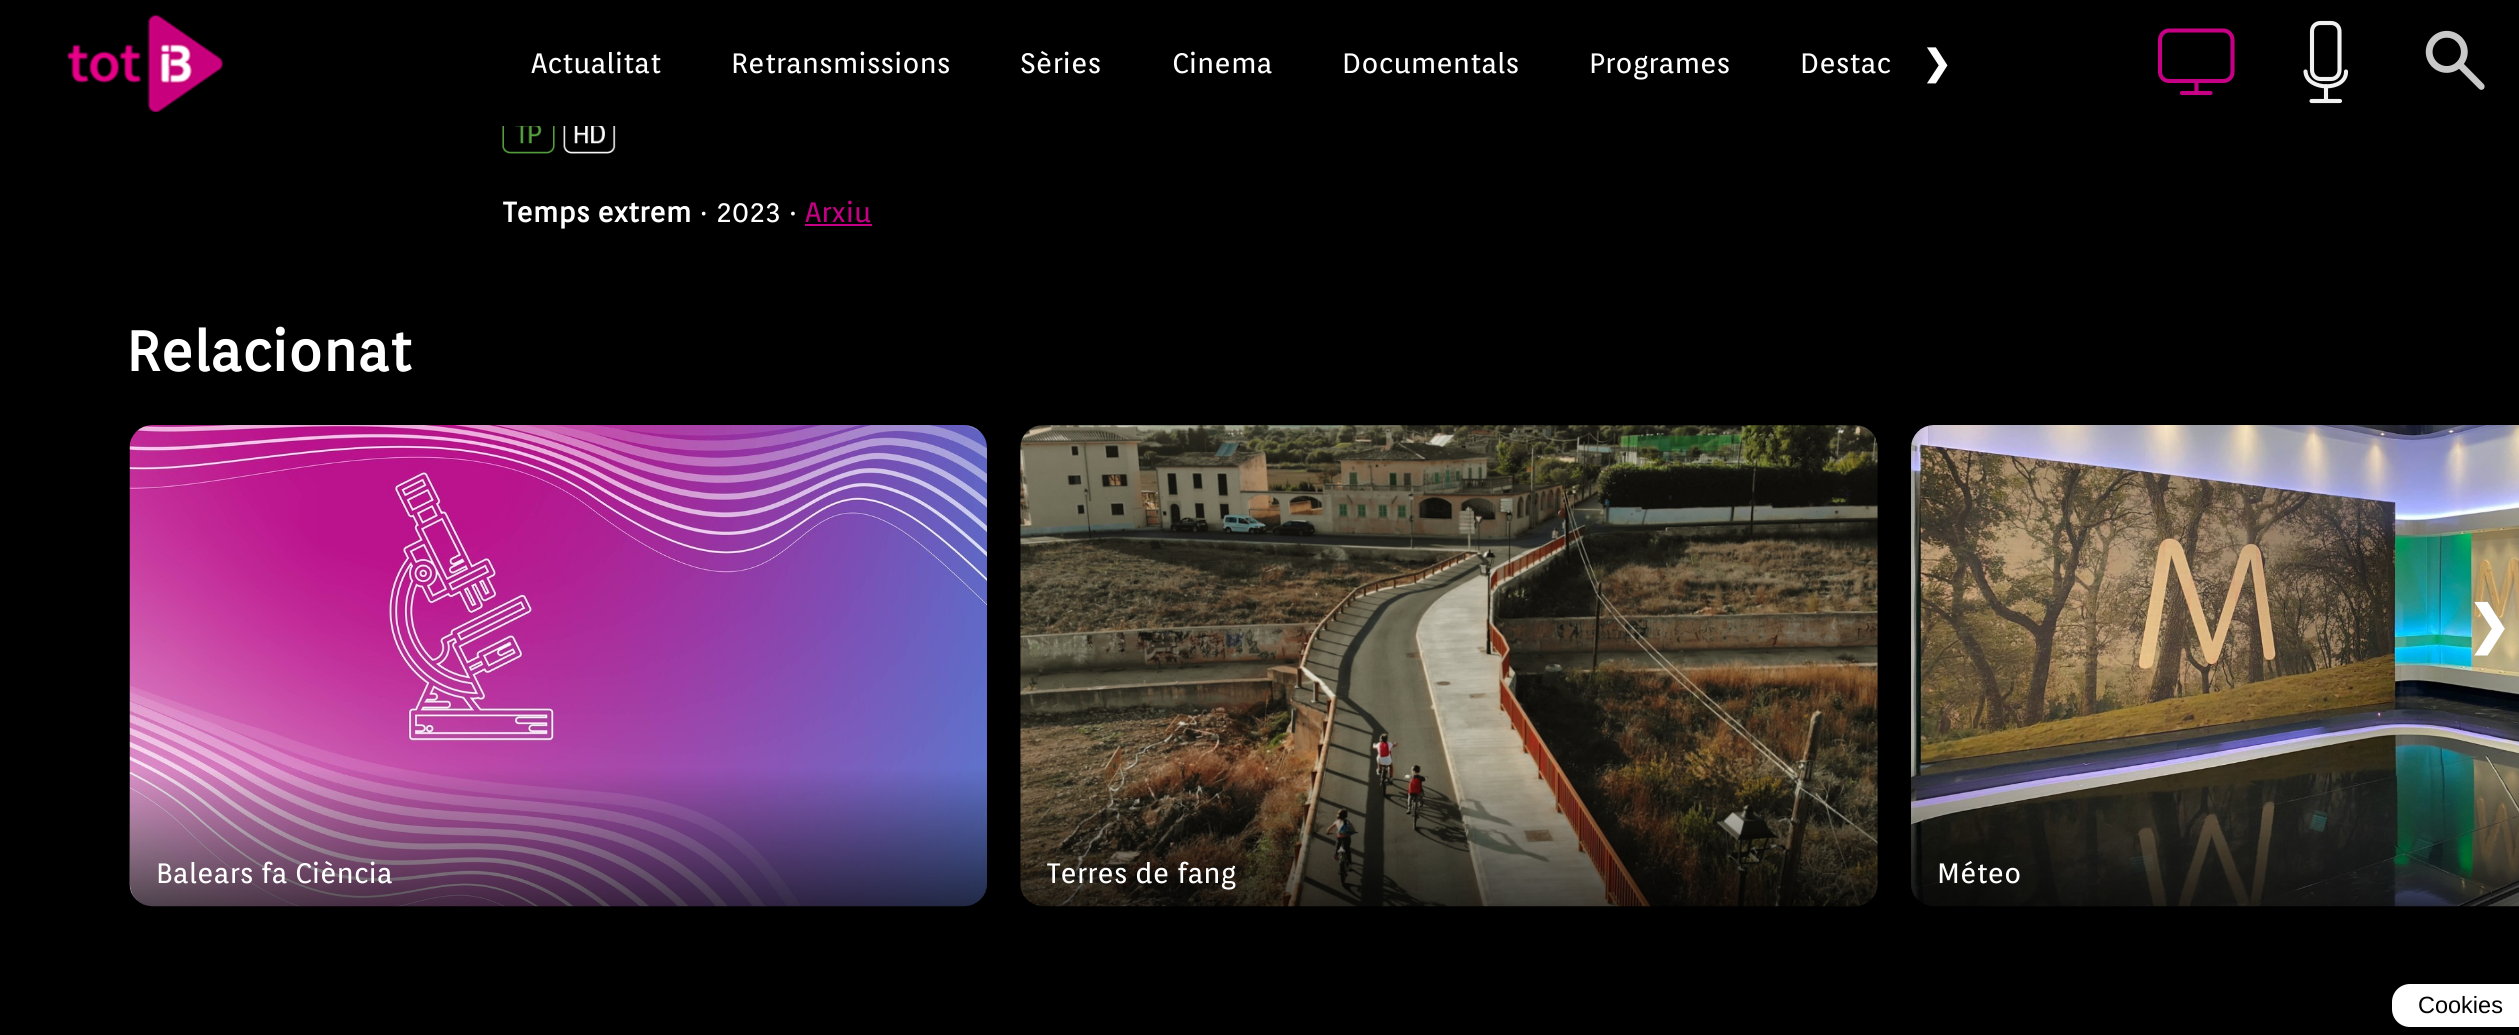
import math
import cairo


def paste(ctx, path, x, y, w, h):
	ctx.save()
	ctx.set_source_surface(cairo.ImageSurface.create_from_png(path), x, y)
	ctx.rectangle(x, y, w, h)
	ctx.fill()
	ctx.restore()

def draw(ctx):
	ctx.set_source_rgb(0, 0, 0)
	ctx.paint()
	paste(ctx, 'media/1.png', 67, 14, 156, 98)
	ctx.select_font_face('Orienta')
	ctx.set_font_size(28)
	ctx.set_source_rgb(1, 1, 1)
	for x, y, s in [
		(531, 73, 'Actualitat'),
		(731, 73, 'Retransmissions'),
		(1020, 73, 'Sèries'),
		(1172, 73, 'Cinema'),
		(1342, 73, 'Documentals'),
		(1589, 73, 'Programes'),
		(1800, 73, 'Destac'),
	]:
		ctx.move_to(x, y)
		ctx.show_text(s)
	ctx.select_font_face('DejaVu Sans', cairo.FONT_SLANT_NORMAL, cairo.FONT_WEIGHT_BOLD)
	ctx.set_font_size(35)
	ctx.move_to(1922, 75)
	ctx.show_text('❯')
	ctx.new_path()
	ctx.move_to(2223.5, 81)
	ctx.line_to(2169, 81)
	ctx.curve_to(2164, 81, 2160, 77, 2160, 71.5)
	ctx.line_to(2160, 40)
	ctx.curve_to(2160, 35, 2164, 30.5, 2169, 30.5)
	ctx.line_to(2223.5, 30.5)
	ctx.curve_to(2228.5, 30.5, 2232.5, 35, 2232.5, 40)
	ctx.line_to(2232.5, 72)
	ctx.curve_to(2232.5, 77, 2228.5, 81, 2223.5, 81)
	ctx.close_path()
	ctx.set_source_rgb(0.773, 0, 0.518)
	ctx.set_line_width(4.1)
	ctx.stroke()
	ctx.new_path()
	ctx.move_to(2182, 93)
	ctx.line_to(2210.5, 93)
	ctx.move_to(2196.5, 81)
	ctx.line_to(2196.5, 93)
	ctx.set_line_cap(cairo.LINE_CAP_ROUND)
	ctx.stroke()
	ctx.new_path()
	ctx.move_to(2331, 79)
	ctx.line_to(2320.5, 79)
	ctx.curve_to(2315.5, 79, 2312, 75, 2312, 70)
	ctx.line_to(2312, 31.5)
	ctx.curve_to(2312, 26.5, 2315.5, 23, 2320.5, 23)
	ctx.line_to(2331, 23)
	ctx.curve_to(2336, 23, 2339.5, 26.5, 2339.5, 31.5)
	ctx.line_to(2339.5, 70)
	ctx.curve_to(2339.5, 75, 2336, 79, 2331, 79)
	ctx.close_path()
	ctx.set_source_rgb(0.945, 0.945, 0.945)
	ctx.set_line_cap(cairo.LINE_CAP_BUTT)
	ctx.stroke()
	ctx.new_path()
	ctx.move_to(2305.5, 71.5)
	ctx.curve_to(2306.5, 91, 2346.5, 91.5, 2346, 71.5)
	ctx.move_to(2326, 86)
	ctx.line_to(2326, 101)
	ctx.move_to(2311.5, 101)
	ctx.line_to(2340, 101)
	ctx.set_line_cap(cairo.LINE_CAP_ROUND)
	ctx.stroke()
	paste(ctx, 'media/2.png', 2425, 30, 60, 60)
	paste(ctx, 'media/3.png', 502, 126, 53, 28)
	paste(ctx, 'media/4.png', 563, 126, 53, 28)
	ctx.select_font_face('Orienta', cairo.FONT_SLANT_NORMAL, cairo.FONT_WEIGHT_BOLD)
	ctx.set_font_size(28)
	ctx.set_source_rgb(1, 1, 1)
	ctx.move_to(503, 222)
	ctx.show_text('Temps extrem')
	ctx.select_font_face('Orienta')
	ctx.move_to(699, 222)
	ctx.show_text('· 2023 ·')
	ctx.set_source_rgb(0.773, 0, 0.518)
	ctx.move_to(805, 222)
	ctx.show_text('Arxiu')
	ctx.rectangle(805, 224, 67, 2)
	ctx.fill()
	ctx.select_font_face('Orienta', cairo.FONT_SLANT_NORMAL, cairo.FONT_WEIGHT_BOLD)
	ctx.set_font_size(56)
	ctx.set_source_rgb(1, 1, 1)
	ctx.move_to(126, 371)
	ctx.show_text('Relacionat')
	paste(ctx, 'media/7.png', 1911, 425, 608, 482)
	ctx.select_font_face('DejaVu Sans', cairo.FONT_SLANT_NORMAL, cairo.FONT_WEIGHT_BOLD)
	ctx.set_font_size(52)
	ctx.move_to(2467, 643)
	ctx.show_text('❯')
	paste(ctx, 'media/5.png', 129, 425, 858, 482)
	gradient = cairo.LinearGradient(558, 907, 558, 768)
	gradient.add_color_stop_rgba(0, 0, 0, 0, 0.67)
	gradient.add_color_stop_rgba(1, 0, 0, 0, 0)
	ctx.set_source(gradient)
	ctx.new_path()
	ctx.move_to(130, 768)
	ctx.line_to(987, 768)
	ctx.line_to(987, 884)
	ctx.curve_to(987, 896.5, 976.5, 907, 964, 907)
	ctx.line_to(153, 907)
	ctx.curve_to(140.5, 907, 130, 896.5, 130, 884)
	ctx.close_path()
	ctx.fill()
	ctx.select_font_face('Orienta')
	ctx.set_font_size(28)
	ctx.set_source_rgb(1, 1, 1)
	ctx.move_to(156, 883)
	ctx.show_text('Balears fa Ciència')
	paste(ctx, 'media/6.png', 1020, 425, 858, 482)
	gradient = cairo.LinearGradient(1449, 907, 1449, 768)
	gradient.add_color_stop_rgba(0, 0, 0, 0, 0.67)
	gradient.add_color_stop_rgba(1, 0, 0, 0, 0)
	ctx.set_source(gradient)
	ctx.new_path()
	ctx.move_to(1020, 768)
	ctx.line_to(1878, 768)
	ctx.line_to(1878, 884)
	ctx.curve_to(1878, 896.5, 1867.5, 907, 1855, 907)
	ctx.line_to(1043, 907)
	ctx.curve_to(1030.5, 907, 1020, 896.5, 1020, 884)
	ctx.close_path()
	ctx.fill()
	ctx.set_source_rgb(1, 1, 1)
	ctx.move_to(1047, 883)
	ctx.show_text('Terres de fang')
	gradient = cairo.LinearGradient(2340, 907, 2340, 768)
	gradient.add_color_stop_rgba(0, 0, 0, 0, 0.67)
	gradient.add_color_stop_rgba(1, 0, 0, 0, 0)
	ctx.set_source(gradient)
	ctx.new_path()
	ctx.move_to(1911, 768)
	ctx.line_to(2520, 768)
	ctx.line_to(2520, 907)
	ctx.line_to(1934, 907)
	ctx.curve_to(1921.5, 907, 1911, 896.5, 1911, 884)
	ctx.close_path()
	ctx.fill()
	ctx.set_source_rgb(1, 1, 1)
	ctx.move_to(1937, 883)
	ctx.show_text('Méteo')
	ctx.new_path()
	ctx.move_to(2410, 984)
	ctx.line_to(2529, 984)
	ctx.line_to(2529, 1027)
	ctx.line_to(2410, 1027)
	ctx.curve_to(2400, 1027, 2392, 1019, 2392, 1009)
	ctx.line_to(2392, 1002)
	ctx.curve_to(2392, 992, 2400, 984, 2410, 984)
	ctx.close_path()
	ctx.fill()
	ctx.select_font_face('Liberation Sans')
	ctx.set_font_size(23.5)
	ctx.set_source_rgb(0, 0, 0)
	ctx.move_to(2418, 1013)
	ctx.show_text('Cookies')


surface = cairo.ImageSurface(cairo.FORMAT_RGB24, 2519, 1035)
ctx = cairo.Context(surface)
options = cairo.FontOptions()
options.set_hint_metrics(cairo.HINT_METRICS_OFF)
options.set_hint_style(cairo.HINT_STYLE_NONE)
ctx.set_font_options(options)
ctx.set_miter_limit(4)
draw(ctx)
surface.write_to_png('image.png')
